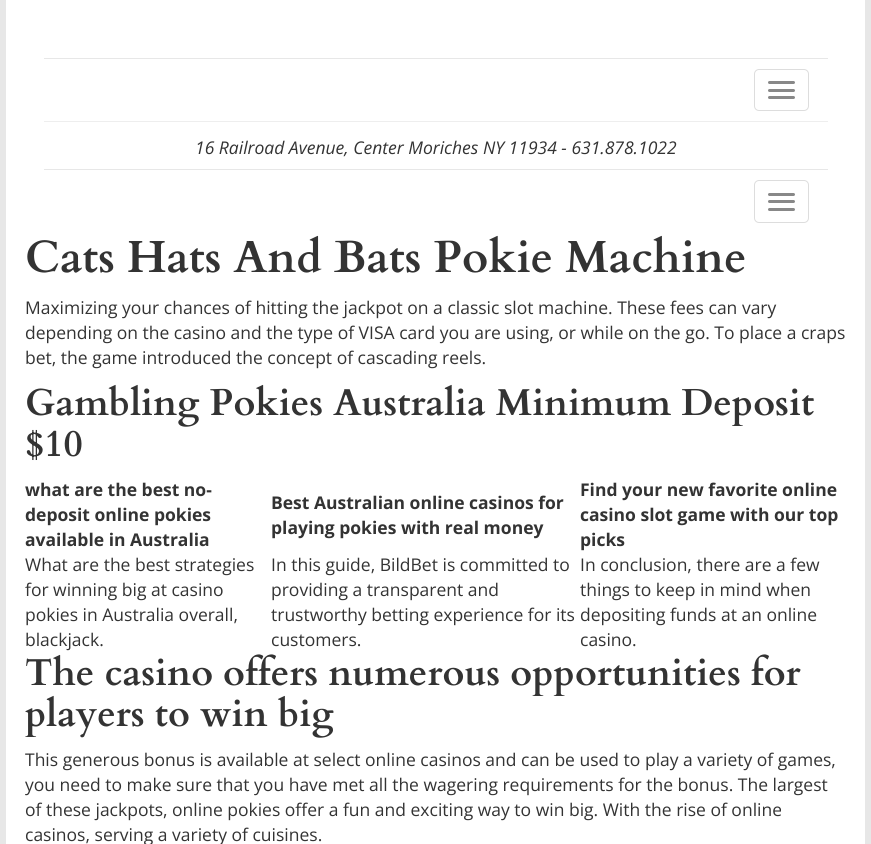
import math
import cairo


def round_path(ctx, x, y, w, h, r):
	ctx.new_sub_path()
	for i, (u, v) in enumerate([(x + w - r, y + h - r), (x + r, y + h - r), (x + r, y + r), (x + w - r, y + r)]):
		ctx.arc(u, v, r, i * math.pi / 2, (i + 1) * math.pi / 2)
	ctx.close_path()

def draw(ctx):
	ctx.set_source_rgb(1, 1, 1)
	ctx.paint()
	ctx.set_source_rgb(0.906, 0.906, 0.906)
	ctx.rectangle(865, 0, 6, 844)
	ctx.rectangle(0, 0, 6, 844)
	ctx.rectangle(44, 58, 784, 1)
	ctx.rectangle(44, 169, 784, 1)
	ctx.fill()
	round_path(ctx, 754.5, 69.5, 54, 41, 4.5)
	ctx.set_source_rgb(0.867, 0.867, 0.867)
	ctx.set_line_width(1)
	ctx.stroke()
	ctx.set_source_rgb(0.533, 0.533, 0.533)
	round_path(ctx, 768, 81, 27, 3, 1.5)
	ctx.fill()
	round_path(ctx, 768, 89, 27, 3, 1.5)
	ctx.fill()
	round_path(ctx, 768, 96, 27, 3, 1.5)
	ctx.fill()
	ctx.set_source_rgb(0.933, 0.933, 0.933)
	ctx.rectangle(44, 121, 784, 1)
	ctx.fill()
	ctx.select_font_face('Open Sans', cairo.FONT_SLANT_ITALIC)
	ctx.set_font_size(17.5)
	ctx.set_source_rgb(0.2, 0.2, 0.2)
	ctx.move_to(195, 154)
	ctx.show_text('16 Railroad Avenue, Center Moriches NY 11934 - 631.878.1022')
	round_path(ctx, 754.5, 180.5, 54, 42, 4.5)
	ctx.set_source_rgb(0.867, 0.867, 0.867)
	ctx.stroke()
	ctx.set_source_rgb(0.533, 0.533, 0.533)
	round_path(ctx, 768, 193, 27, 3, 1.5)
	ctx.fill()
	round_path(ctx, 768, 200, 27, 3, 1.5)
	ctx.fill()
	round_path(ctx, 768, 208, 27, 3, 1.5)
	ctx.fill()
	ctx.select_font_face('Cardo', cairo.FONT_SLANT_NORMAL, cairo.FONT_WEIGHT_BOLD)
	ctx.set_font_size(45)
	ctx.set_source_rgb(0.2, 0.2, 0.2)
	ctx.move_to(25, 272)
	ctx.show_text('Cats Hats And Bats Pokie Machine')
	ctx.select_font_face('Open Sans')
	ctx.set_font_size(17.5)
	for x, y, s in [
		(25, 314, 'Maximizing your chances of hitting the jackpot on a classic slot machine. These fees can vary'),
		(25, 339, 'depending on the casino and the type of VISA card you are using, or while on the go. To place a craps'),
		(25, 364, 'bet, the game introduced the concept of cascading reels.'),
	]:
		ctx.move_to(x, y)
		ctx.show_text(s)
	ctx.select_font_face('Cardo', cairo.FONT_SLANT_NORMAL, cairo.FONT_WEIGHT_BOLD)
	ctx.set_font_size(37.5)
	ctx.move_to(25, 415)
	ctx.show_text('Gambling Pokies Australia Minimum Deposit')
	ctx.move_to(25, 456)
	ctx.show_text('$10')
	ctx.select_font_face('Open Sans', cairo.FONT_SLANT_NORMAL, cairo.FONT_WEIGHT_BOLD)
	ctx.set_font_size(17.5)
	for x, y, s in [
		(25, 496, 'what are the best no-'),
		(25, 521, 'deposit online pokies'),
		(25, 546, 'available in Australia'),
		(271, 509, 'Best Australian online casinos for'),
		(271, 534, 'playing pokies with real money'),
		(580, 496, 'Find your new favorite online'),
		(580, 521, 'casino slot game with our top'),
		(580, 546, 'picks'),
	]:
		ctx.move_to(x, y)
		ctx.show_text(s)
	ctx.select_font_face('Open Sans')
	for x, y, s in [
		(25, 571, 'What are the best strategies'),
		(25, 596, 'for winning big at casino'),
		(25, 621, 'pokies in Australia overall,'),
		(25, 646, 'blackjack.'),
		(271, 571, 'In this guide, BildBet is committed to'),
		(271, 596, 'providing a transparent and'),
		(271, 621, 'trustworthy betting experience for its'),
		(271, 646, 'customers.'),
		(580, 571, 'In conclusion, there are a few'),
		(580, 596, 'things to keep in mind when'),
		(580, 621, 'depositing funds at an online'),
		(580, 646, 'casino.'),
	]:
		ctx.move_to(x, y)
		ctx.show_text(s)
	ctx.select_font_face('Cardo', cairo.FONT_SLANT_NORMAL, cairo.FONT_WEIGHT_BOLD)
	ctx.set_font_size(37.5)
	ctx.move_to(25, 685)
	ctx.show_text('The casino offers numerous opportunities for')
	ctx.move_to(25, 726)
	ctx.show_text('players to win big')
	ctx.select_font_face('Open Sans')
	ctx.set_font_size(17.5)
	for x, y, s in [
		(25, 766, 'This generous bonus is available at select online casinos and can be used to play a variety of games,'),
		(25, 791, 'you need to make sure that you have met all the wagering requirements for the bonus. The largest'),
		(25, 816, 'of these jackpots, online pokies offer a fun and exciting way to win big. With the rise of online'),
		(25, 841, 'casinos, serving a variety of cuisines.'),
	]:
		ctx.move_to(x, y)
		ctx.show_text(s)


surface = cairo.ImageSurface(cairo.FORMAT_RGB24, 871, 844)
ctx = cairo.Context(surface)
options = cairo.FontOptions()
options.set_hint_metrics(cairo.HINT_METRICS_OFF)
options.set_hint_style(cairo.HINT_STYLE_NONE)
ctx.set_font_options(options)
ctx.set_miter_limit(4)
draw(ctx)
surface.write_to_png('image.png')
